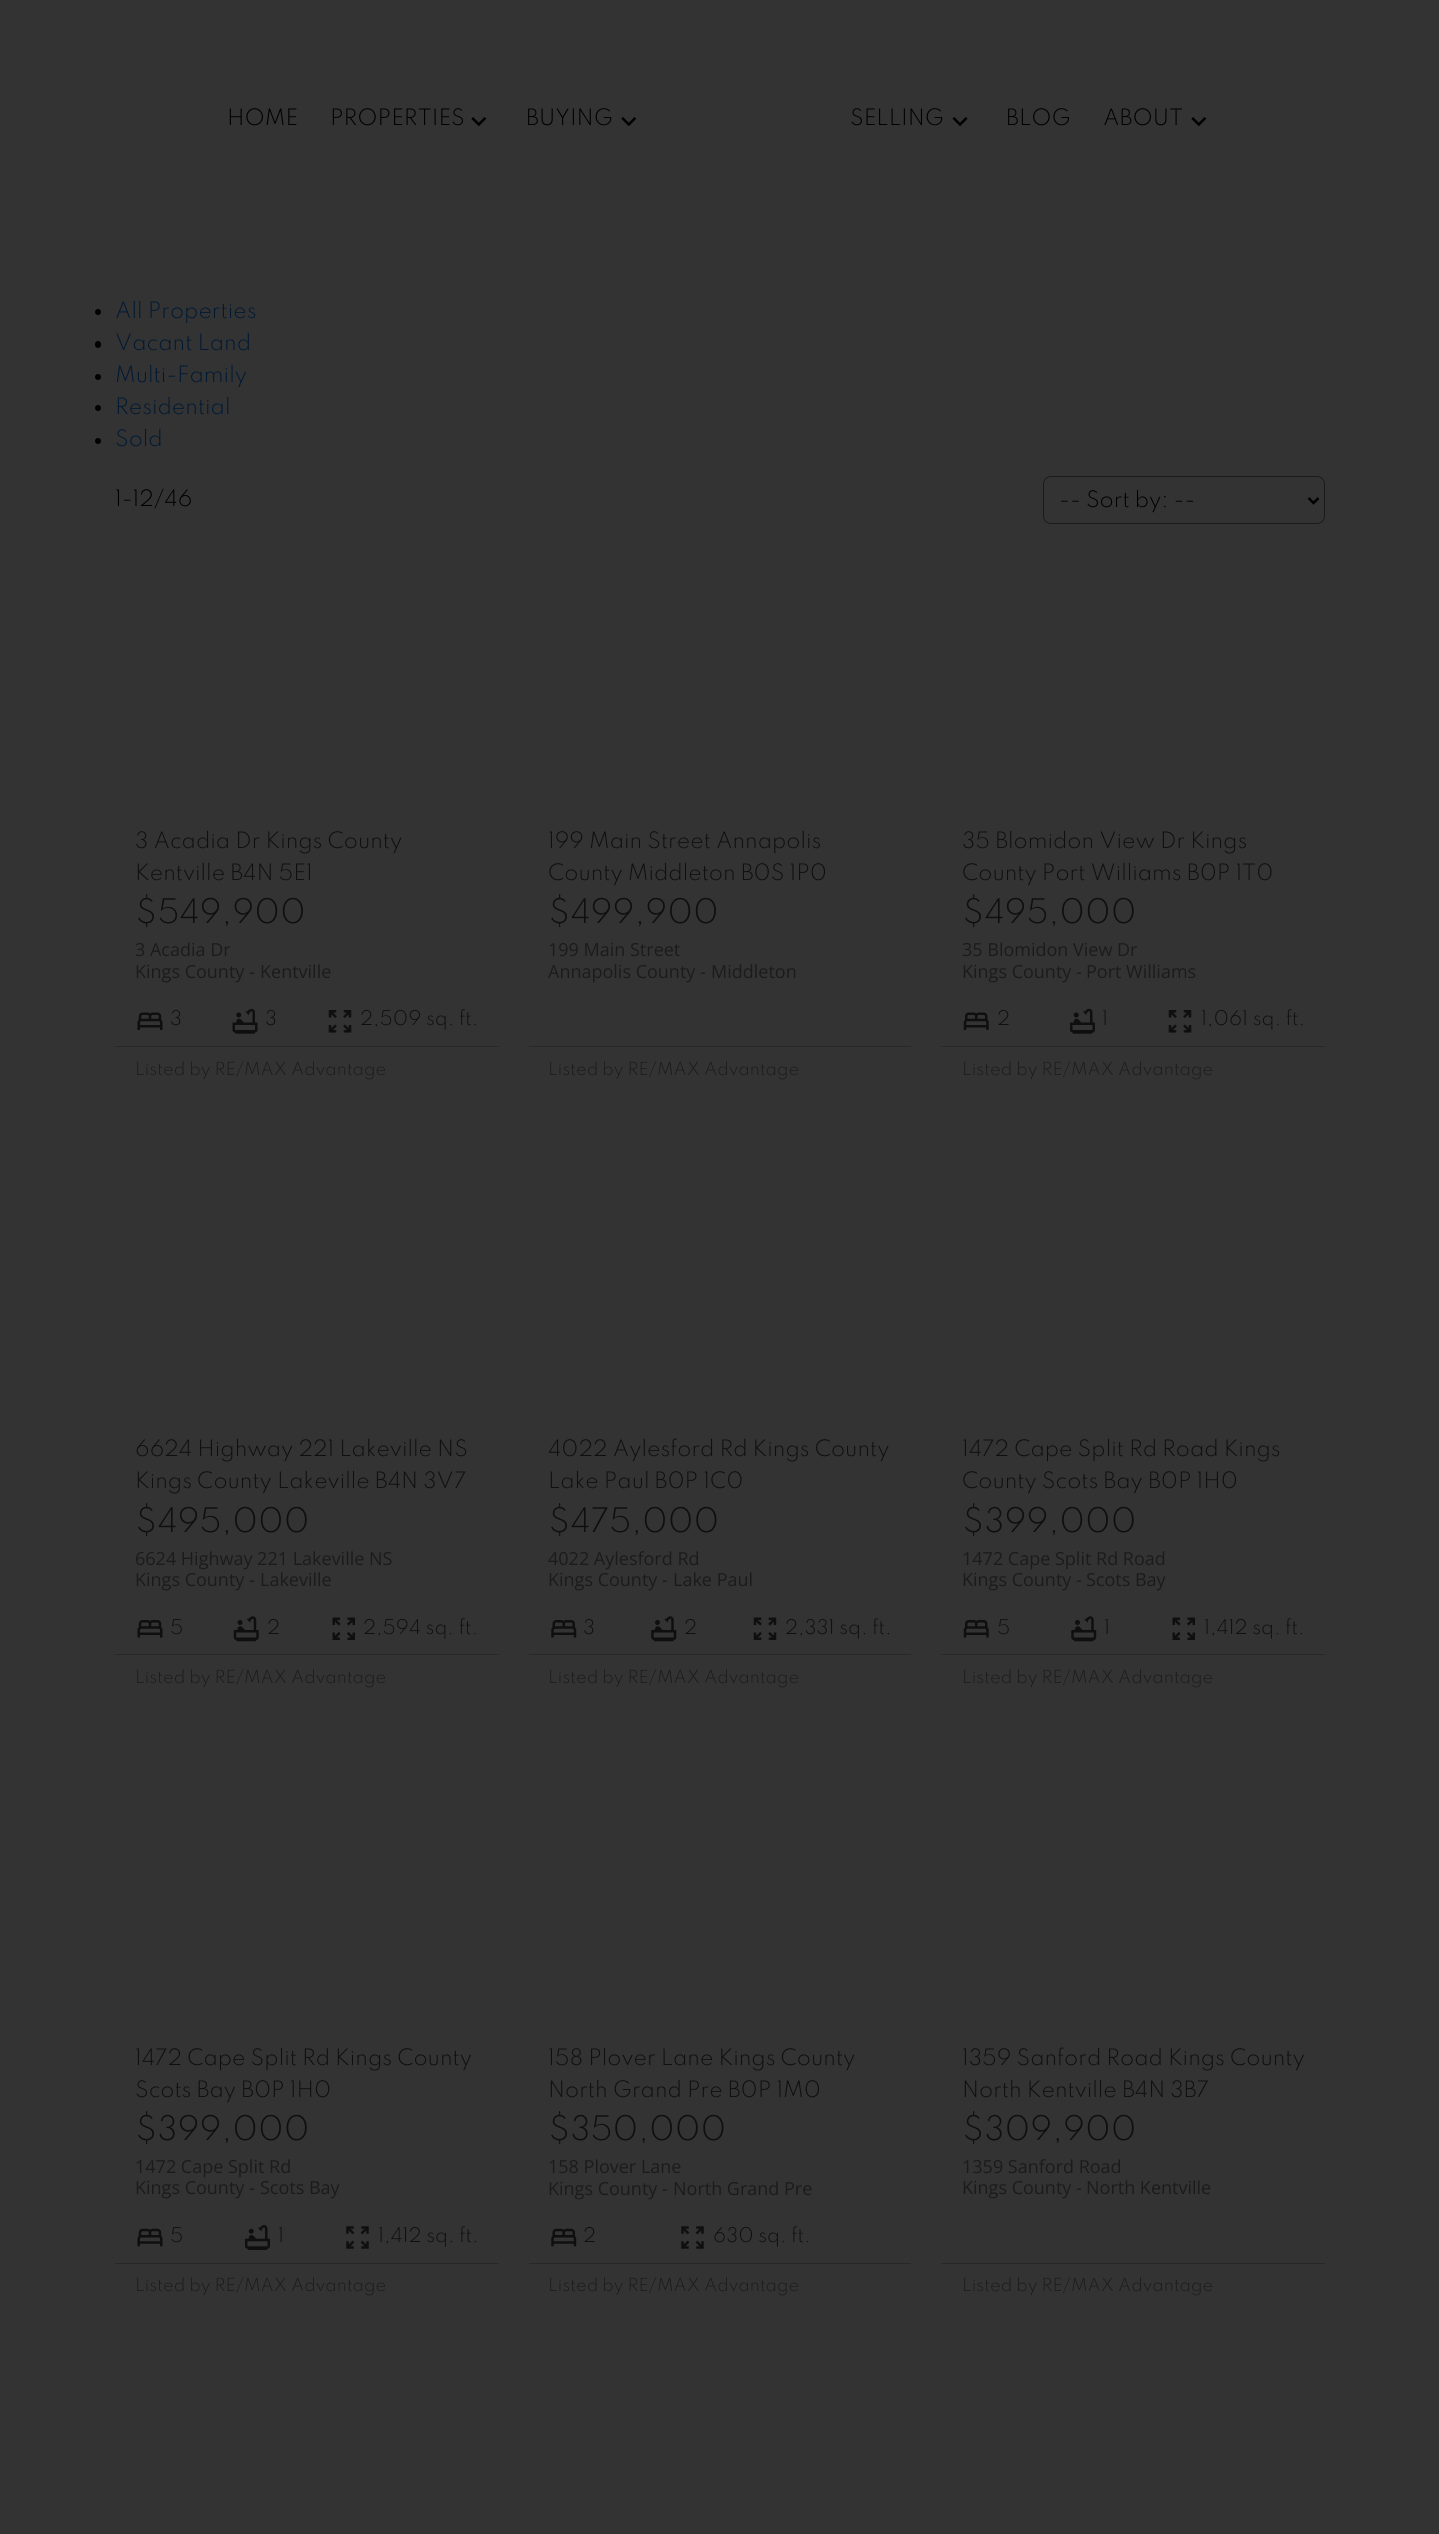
import math
import cairo


def round_path(ctx, x, y, w, h, r):
	ctx.new_sub_path()
	for i, (u, v) in enumerate([(x + w - r, y + h - r), (x + r, y + h - r), (x + r, y + r), (x + w - r, y + r)]):
		ctx.arc(u, v, r, i * math.pi / 2, (i + 1) * math.pi / 2)
	ctx.close_path()

def paste(ctx, path, x, y, w, h):
	ctx.save()
	ctx.set_source_surface(cairo.ImageSurface.create_from_png(path), x, y)
	ctx.rectangle(x, y, w, h)
	ctx.fill()
	ctx.restore()

def draw(ctx):
	ctx.set_source_rgb(0.2, 0.2, 0.2)
	ctx.paint()
	ctx.select_font_face('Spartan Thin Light')
	ctx.set_font_size(20)
	ctx.set_source_rgb(0, 0, 0)
	ctx.move_to(227, 125)
	ctx.show_text('HOME')
	ctx.move_to(330, 125)
	ctx.show_text('PROPERTIES')
	paste(ctx, 'media/1.png', 471, 117, 16, 10)
	ctx.move_to(526, 125)
	ctx.show_text('BUYING')
	paste(ctx, 'media/1.png', 621, 117, 16, 10)
	ctx.move_to(850, 125)
	ctx.show_text('SELLING')
	paste(ctx, 'media/2.png', 952, 117, 16, 10)
	ctx.move_to(1006, 125)
	ctx.show_text('BLOG')
	ctx.move_to(1103, 125)
	ctx.show_text('ABOUT')
	paste(ctx, 'media/1.png', 1191, 117, 16, 10)
	ctx.arc(98, 312, 3, 0, 2 * math.pi)
	ctx.fill()
	ctx.set_source_rgb(0, 0.098, 0.2)
	ctx.move_to(115, 318)
	ctx.show_text('All Properties')
	ctx.set_source_rgb(0, 0, 0)
	round_path(ctx, 95, 341, 6, 7, 3)
	ctx.fill()
	ctx.set_source_rgb(0, 0.098, 0.2)
	ctx.move_to(115, 350)
	ctx.show_text('Vacant Land')
	ctx.set_source_rgb(0, 0, 0)
	ctx.new_path()
	ctx.arc(98, 377, 3, 0, 2 * math.pi)
	ctx.fill()
	ctx.set_source_rgb(0, 0.098, 0.2)
	ctx.move_to(115, 382)
	ctx.show_text('Multi-Family')
	ctx.set_source_rgb(0, 0, 0)
	ctx.new_path()
	ctx.arc(98, 408, 3, 0, 2 * math.pi)
	ctx.fill()
	ctx.set_source_rgb(0, 0.098, 0.2)
	ctx.move_to(115, 414)
	ctx.show_text('Residential')
	ctx.set_source_rgb(0, 0, 0)
	ctx.new_path()
	ctx.arc(98, 441, 3, 0, 2 * math.pi)
	ctx.fill()
	ctx.set_source_rgb(0, 0.098, 0.2)
	ctx.move_to(115, 446)
	ctx.show_text('Sold')
	ctx.set_source_rgb(0, 0, 0)
	ctx.move_to(115, 506)
	ctx.show_text('1-12/46')
	round_path(ctx, 1043.5, 476.5, 281, 47, 7.5)
	ctx.set_source_rgb(0.106, 0.106, 0.106)
	ctx.set_line_width(1)
	ctx.stroke()
	ctx.new_path()
	ctx.move_to(1308.5, 498)
	ctx.line_to(1313.5, 503)
	ctx.line_to(1318.5, 498)
	ctx.set_source_rgb(0, 0, 0)
	ctx.set_line_width(2.5)
	ctx.stroke()
	ctx.move_to(1059, 507)
	ctx.show_text('-- Sort by: --')
	ctx.set_source_rgb(0.059, 0.059, 0.059)
	ctx.move_to(135, 848)
	ctx.show_text('3 Acadia Dr Kings County')
	ctx.move_to(135, 880)
	ctx.show_text('Kentville B4N 5E1')
	ctx.set_font_size(30)
	ctx.move_to(135, 923)
	ctx.show_text('$549,900')
	ctx.select_font_face('Open Sans')
	ctx.set_font_size(18)
	ctx.set_source_rgb(0.106, 0.106, 0.106)
	for x, y, s in [
		(135, 956, '3 Acadia Dr'),
		(135, 978, 'Kings County -'),
		(260, 978, 'Kentville'),
	]:
		ctx.move_to(x, y)
		ctx.show_text(s)
	paste(ctx, 'media/3.png', 137, 1012, 26, 18)
	ctx.select_font_face('Spartan Thin Light')
	ctx.set_source_rgb(0.059, 0.059, 0.059)
	ctx.move_to(170, 1025)
	ctx.show_text('3')
	paste(ctx, 'media/4.png', 232, 1008, 26, 26)
	ctx.move_to(265, 1025)
	ctx.show_text('3')
	paste(ctx, 'media/5.png', 328, 1010, 24, 23)
	ctx.move_to(360, 1025)
	ctx.show_text('2,509 sq. ft.')
	ctx.set_source_rgb(0.157, 0.157, 0.157)
	ctx.rectangle(115, 1046, 384, 1)
	ctx.fill()
	ctx.set_font_size(16)
	ctx.set_source_rgb(0.106, 0.106, 0.106)
	ctx.move_to(135, 1075)
	ctx.show_text('Listed by RE/MAX Advantage')
	ctx.set_font_size(20)
	ctx.set_source_rgb(0.059, 0.059, 0.059)
	ctx.move_to(548, 848)
	ctx.show_text('199 Main Street Annapolis')
	ctx.move_to(548, 880)
	ctx.show_text('County Middleton B0S 1P0')
	ctx.set_font_size(30)
	ctx.move_to(548, 923)
	ctx.show_text('$499,900')
	ctx.select_font_face('Open Sans')
	ctx.set_font_size(18)
	ctx.set_source_rgb(0.106, 0.106, 0.106)
	for x, y, s in [
		(548, 956, '199 Main Street'),
		(548, 978, 'Annapolis County -'),
		(711, 978, 'Middleton'),
	]:
		ctx.move_to(x, y)
		ctx.show_text(s)
	ctx.set_source_rgb(0.157, 0.157, 0.157)
	ctx.rectangle(529, 1046, 382, 1)
	ctx.fill()
	ctx.select_font_face('Spartan Thin Light')
	ctx.set_font_size(16)
	ctx.set_source_rgb(0.106, 0.106, 0.106)
	ctx.move_to(548, 1075)
	ctx.show_text('Listed by RE/MAX Advantage')
	ctx.set_font_size(20)
	ctx.set_source_rgb(0.059, 0.059, 0.059)
	ctx.move_to(962, 848)
	ctx.show_text('35 Blomidon View Dr Kings')
	ctx.move_to(962, 880)
	ctx.show_text('County Port Williams B0P 1T0')
	ctx.set_font_size(30)
	ctx.move_to(962, 923)
	ctx.show_text('$495,000')
	ctx.select_font_face('Open Sans')
	ctx.set_font_size(18)
	ctx.set_source_rgb(0.106, 0.106, 0.106)
	for x, y, s in [
		(962, 956, '35 Blomidon View Dr'),
		(962, 978, 'Kings County -'),
		(1086, 978, 'Port Williams'),
	]:
		ctx.move_to(x, y)
		ctx.show_text(s)
	paste(ctx, 'media/6.png', 963, 1012, 26, 18)
	ctx.select_font_face('Spartan Thin Light')
	ctx.set_source_rgb(0.059, 0.059, 0.059)
	ctx.move_to(997, 1025)
	ctx.show_text('2')
	paste(ctx, 'media/7.png', 1070, 1008, 25, 26)
	ctx.move_to(1102, 1025)
	ctx.show_text('1')
	paste(ctx, 'media/5.png', 1168, 1010, 24, 23)
	ctx.move_to(1201, 1025)
	ctx.show_text('1,061 sq. ft.')
	ctx.set_source_rgb(0.157, 0.157, 0.157)
	ctx.rectangle(941, 1046, 384, 1)
	ctx.fill()
	ctx.set_font_size(16)
	ctx.set_source_rgb(0.106, 0.106, 0.106)
	ctx.move_to(962, 1075)
	ctx.show_text('Listed by RE/MAX Advantage')
	ctx.set_font_size(20)
	ctx.set_source_rgb(0.059, 0.059, 0.059)
	ctx.move_to(135, 1456)
	ctx.show_text('6624 Highway 221 Lakeville NS')
	ctx.move_to(135, 1488)
	ctx.show_text('Kings County Lakeville B4N 3V7')
	ctx.set_font_size(30)
	ctx.move_to(135, 1532)
	ctx.show_text('$495,000')
	ctx.select_font_face('Open Sans')
	ctx.set_font_size(18)
	ctx.set_source_rgb(0.106, 0.106, 0.106)
	for x, y, s in [
		(135, 1565, '6624 Highway 221 Lakeville NS'),
		(135, 1586, 'Kings County -'),
		(260, 1586, 'Lakeville'),
	]:
		ctx.move_to(x, y)
		ctx.show_text(s)
	paste(ctx, 'media/8.png', 137, 1620, 26, 18)
	ctx.select_font_face('Spartan Thin Light')
	ctx.set_source_rgb(0.059, 0.059, 0.059)
	ctx.move_to(170, 1634)
	ctx.show_text('5')
	paste(ctx, 'media/9.png', 233, 1616, 26, 26)
	ctx.move_to(267, 1634)
	ctx.show_text('2')
	paste(ctx, 'media/10.png', 332, 1617, 23, 23)
	ctx.move_to(363, 1634)
	ctx.show_text('2,594 sq. ft.')
	ctx.set_source_rgb(0.157, 0.157, 0.157)
	ctx.rectangle(115, 1654, 384, 1)
	ctx.fill()
	ctx.set_font_size(16)
	ctx.set_source_rgb(0.106, 0.106, 0.106)
	ctx.move_to(135, 1683)
	ctx.show_text('Listed by RE/MAX Advantage')
	ctx.set_font_size(20)
	ctx.set_source_rgb(0.059, 0.059, 0.059)
	ctx.move_to(548, 1456)
	ctx.show_text('4022 Aylesford Rd Kings County')
	ctx.move_to(548, 1488)
	ctx.show_text('Lake Paul B0P 1C0')
	ctx.set_font_size(30)
	ctx.move_to(548, 1532)
	ctx.show_text('$475,000')
	ctx.select_font_face('Open Sans')
	ctx.set_font_size(18)
	ctx.set_source_rgb(0.106, 0.106, 0.106)
	for x, y, s in [
		(548, 1565, '4022 Aylesford Rd'),
		(548, 1586, 'Kings County -'),
		(673, 1586, 'Lake Paul'),
	]:
		ctx.move_to(x, y)
		ctx.show_text(s)
	paste(ctx, 'media/11.png', 551, 1620, 26, 18)
	ctx.select_font_face('Spartan Thin Light')
	ctx.set_source_rgb(0.059, 0.059, 0.059)
	ctx.move_to(583, 1634)
	ctx.show_text('3')
	paste(ctx, 'media/12.png', 651, 1616, 26, 26)
	ctx.move_to(684, 1634)
	ctx.show_text('2')
	paste(ctx, 'media/13.png', 753, 1617, 24, 23)
	ctx.move_to(785, 1634)
	ctx.show_text('2,331 sq. ft.')
	ctx.set_source_rgb(0.157, 0.157, 0.157)
	ctx.rectangle(529, 1654, 382, 1)
	ctx.fill()
	ctx.set_font_size(16)
	ctx.set_source_rgb(0.106, 0.106, 0.106)
	ctx.move_to(548, 1683)
	ctx.show_text('Listed by RE/MAX Advantage')
	ctx.set_font_size(20)
	ctx.set_source_rgb(0.059, 0.059, 0.059)
	ctx.move_to(962, 1456)
	ctx.show_text('1472 Cape Split Rd Road Kings')
	ctx.move_to(962, 1488)
	ctx.show_text('County Scots Bay B0P 1H0')
	ctx.set_font_size(30)
	ctx.move_to(962, 1532)
	ctx.show_text('$399,000')
	ctx.select_font_face('Open Sans')
	ctx.set_font_size(18)
	ctx.set_source_rgb(0.106, 0.106, 0.106)
	for x, y, s in [
		(962, 1565, '1472 Cape Split Rd Road'),
		(962, 1586, 'Kings County -'),
		(1086, 1586, 'Scots Bay'),
	]:
		ctx.move_to(x, y)
		ctx.show_text(s)
	paste(ctx, 'media/14.png', 963, 1620, 26, 18)
	ctx.select_font_face('Spartan Thin Light')
	ctx.set_source_rgb(0.059, 0.059, 0.059)
	ctx.move_to(997, 1634)
	ctx.show_text('5')
	paste(ctx, 'media/12.png', 1071, 1616, 26, 26)
	ctx.move_to(1104, 1634)
	ctx.show_text('1')
	paste(ctx, 'media/10.png', 1172, 1617, 23, 23)
	ctx.move_to(1204, 1634)
	ctx.show_text('1,412 sq. ft.')
	ctx.set_source_rgb(0.157, 0.157, 0.157)
	ctx.rectangle(941, 1654, 384, 1)
	ctx.fill()
	ctx.set_font_size(16)
	ctx.set_source_rgb(0.106, 0.106, 0.106)
	ctx.move_to(962, 1683)
	ctx.show_text('Listed by RE/MAX Advantage')
	ctx.set_font_size(20)
	ctx.set_source_rgb(0.059, 0.059, 0.059)
	ctx.move_to(135, 2065)
	ctx.show_text('1472 Cape Split Rd Kings County')
	ctx.move_to(135, 2097)
	ctx.show_text('Scots Bay B0P 1H0')
	ctx.set_font_size(30)
	ctx.move_to(135, 2140)
	ctx.show_text('$399,000')
	ctx.select_font_face('Open Sans')
	ctx.set_font_size(18)
	ctx.set_source_rgb(0.106, 0.106, 0.106)
	for x, y, s in [
		(135, 2173, '1472 Cape Split Rd'),
		(135, 2194, 'Kings County -'),
		(260, 2194, 'Scots Bay'),
	]:
		ctx.move_to(x, y)
		ctx.show_text(s)
	paste(ctx, 'media/15.png', 137, 2228, 26, 19)
	ctx.select_font_face('Spartan Thin Light')
	ctx.set_source_rgb(0.059, 0.059, 0.059)
	ctx.move_to(170, 2242)
	ctx.show_text('5')
	paste(ctx, 'media/16.png', 245, 2225, 25, 25)
	ctx.move_to(278, 2242)
	ctx.show_text('1')
	paste(ctx, 'media/17.png', 346, 2226, 23, 23)
	ctx.move_to(378, 2242)
	ctx.show_text('1,412 sq. ft.')
	ctx.set_source_rgb(0.157, 0.157, 0.157)
	ctx.rectangle(115, 2263, 384, 1)
	ctx.fill()
	ctx.set_font_size(16)
	ctx.set_source_rgb(0.106, 0.106, 0.106)
	ctx.move_to(135, 2291)
	ctx.show_text('Listed by RE/MAX Advantage')
	ctx.set_font_size(20)
	ctx.set_source_rgb(0.059, 0.059, 0.059)
	ctx.move_to(548, 2065)
	ctx.show_text('158 Plover Lane Kings County')
	ctx.move_to(548, 2097)
	ctx.show_text('North Grand Pre B0P 1M0')
	ctx.set_font_size(30)
	ctx.move_to(548, 2140)
	ctx.show_text('$350,000')
	ctx.select_font_face('Open Sans')
	ctx.set_font_size(18)
	ctx.set_source_rgb(0.106, 0.106, 0.106)
	for x, y, s in [
		(548, 2173, '158 Plover Lane'),
		(548, 2195, 'Kings County -'),
		(673, 2195, 'North Grand Pre'),
	]:
		ctx.move_to(x, y)
		ctx.show_text(s)
	paste(ctx, 'media/18.png', 551, 2228, 26, 19)
	ctx.select_font_face('Spartan Thin Light')
	ctx.set_source_rgb(0.059, 0.059, 0.059)
	ctx.move_to(583, 2242)
	ctx.show_text('2')
	paste(ctx, 'media/17.png', 681, 2226, 23, 23)
	ctx.move_to(713, 2242)
	ctx.show_text('630 sq. ft.')
	ctx.set_source_rgb(0.157, 0.157, 0.157)
	ctx.rectangle(529, 2263, 382, 1)
	ctx.fill()
	ctx.set_font_size(16)
	ctx.set_source_rgb(0.106, 0.106, 0.106)
	ctx.move_to(548, 2291)
	ctx.show_text('Listed by RE/MAX Advantage')
	ctx.set_font_size(20)
	ctx.set_source_rgb(0.059, 0.059, 0.059)
	ctx.move_to(962, 2065)
	ctx.show_text('1359 Sanford Road Kings County')
	ctx.move_to(962, 2097)
	ctx.show_text('North Kentville B4N 3B7')
	ctx.set_font_size(30)
	ctx.move_to(962, 2140)
	ctx.show_text('$309,900')
	ctx.select_font_face('Open Sans')
	ctx.set_font_size(18)
	ctx.set_source_rgb(0.106, 0.106, 0.106)
	for x, y, s in [
		(962, 2173, '1359 Sanford Road'),
		(962, 2194, 'Kings County -'),
		(1086, 2194, 'North Kentville'),
	]:
		ctx.move_to(x, y)
		ctx.show_text(s)
	ctx.set_source_rgb(0.157, 0.157, 0.157)
	ctx.rectangle(941, 2263, 384, 1)
	ctx.fill()
	ctx.select_font_face('Spartan Thin Light')
	ctx.set_font_size(16)
	ctx.set_source_rgb(0.106, 0.106, 0.106)
	ctx.move_to(962, 2291)
	ctx.show_text('Listed by RE/MAX Advantage')


surface = cairo.ImageSurface(cairo.FORMAT_RGB24, 1439, 2534)
ctx = cairo.Context(surface)
options = cairo.FontOptions()
options.set_hint_metrics(cairo.HINT_METRICS_OFF)
options.set_hint_style(cairo.HINT_STYLE_NONE)
ctx.set_font_options(options)
ctx.set_miter_limit(4)
draw(ctx)
surface.write_to_png('image.png')
